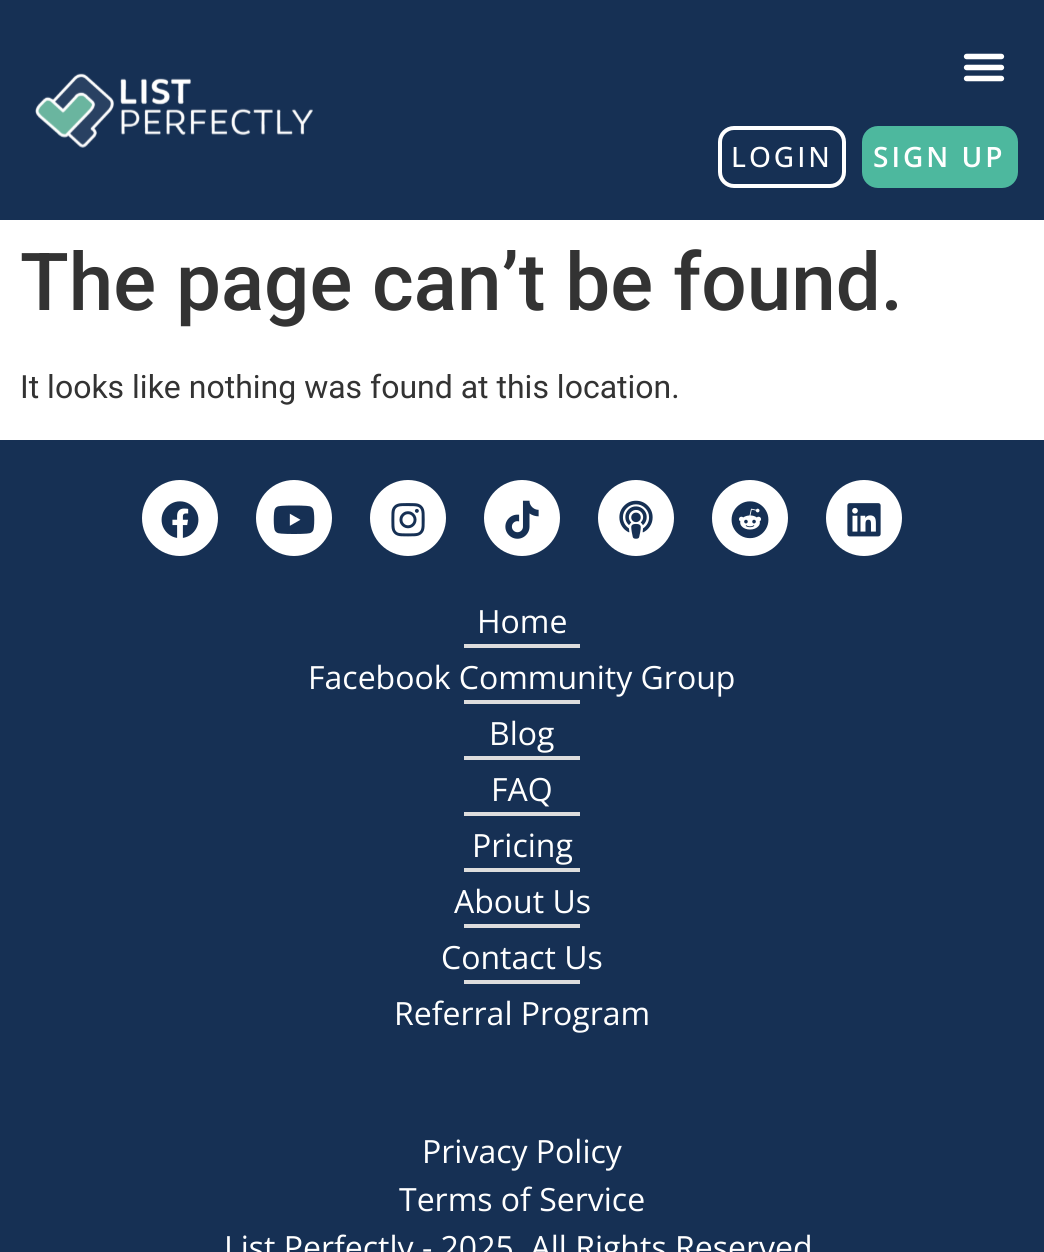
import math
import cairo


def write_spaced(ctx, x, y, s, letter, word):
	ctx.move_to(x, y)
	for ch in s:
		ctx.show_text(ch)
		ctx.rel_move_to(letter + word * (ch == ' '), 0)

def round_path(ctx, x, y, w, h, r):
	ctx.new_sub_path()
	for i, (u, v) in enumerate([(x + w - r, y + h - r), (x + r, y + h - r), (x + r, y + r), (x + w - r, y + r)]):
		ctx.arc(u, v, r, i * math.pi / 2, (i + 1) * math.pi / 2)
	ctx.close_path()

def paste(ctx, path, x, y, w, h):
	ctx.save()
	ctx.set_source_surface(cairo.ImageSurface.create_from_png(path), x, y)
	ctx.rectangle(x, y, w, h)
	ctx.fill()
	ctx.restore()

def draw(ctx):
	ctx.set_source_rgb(1, 1, 1)
	ctx.paint()
	ctx.set_source_rgb(0.086, 0.188, 0.329)
	ctx.rectangle(0, 0, 1044, 220)
	ctx.fill()
	paste(ctx, 'media/1.png', 35, 73, 278, 75)
	paste(ctx, 'media/2.png', 963, 53, 42, 29)
	round_path(ctx, 720, 128, 124, 58, 14)
	ctx.set_source_rgb(1, 1, 1)
	ctx.set_line_width(4)
	ctx.stroke()
	ctx.select_font_face('Open Sans Medium')
	ctx.set_font_size(28)
	write_spaced(ctx, 731, 167, 'LOGIN', 3, 0)
	ctx.set_source_rgb(0.302, 0.722, 0.62)
	round_path(ctx, 864, 128, 152, 58, 14)
	ctx.fill_preserve()
	ctx.stroke()
	ctx.select_font_face('Open Sans SemiBold')
	ctx.set_source_rgb(1, 1, 1)
	write_spaced(ctx, 873, 167, 'SIGN UP', 3, 0)
	ctx.select_font_face('Roboto Medium')
	ctx.set_font_size(80)
	ctx.set_source_rgb(0.2, 0.2, 0.2)
	ctx.move_to(20, 310)
	ctx.show_text('The page can’t be found.')
	ctx.select_font_face('Roboto')
	ctx.set_font_size(32)
	ctx.move_to(20, 398)
	ctx.show_text('It looks like nothing was found at this location.')
	ctx.set_source_rgb(0.086, 0.188, 0.329)
	ctx.rectangle(0, 440, 1044, 812)
	ctx.fill()
	ctx.set_source_rgb(1, 1, 1)
	ctx.arc(180, 518, 38, 0, 2 * math.pi)
	ctx.fill()
	paste(ctx, 'media/3.png', 161, 501, 38, 37)
	ctx.arc(294, 518, 38, 0, 2 * math.pi)
	ctx.fill()
	paste(ctx, 'media/4.png', 273, 505, 42, 29)
	ctx.arc(408, 518, 38, 0, 2 * math.pi)
	ctx.fill()
	paste(ctx, 'media/5.png', 391, 503, 34, 34)
	ctx.arc(522, 518, 38, 0, 2 * math.pi)
	ctx.fill()
	paste(ctx, 'media/6.png', 505, 500, 34, 39)
	ctx.arc(636, 518, 38, 0, 2 * math.pi)
	ctx.fill()
	paste(ctx, 'media/7.png', 619, 500, 34, 39)
	ctx.arc(750, 518, 38, 0, 2 * math.pi)
	ctx.fill()
	paste(ctx, 'media/8.png', 731, 501, 38, 38)
	ctx.arc(864, 518, 38, 0, 2 * math.pi)
	ctx.fill()
	paste(ctx, 'media/9.png', 847, 503, 34, 34)
	ctx.select_font_face('Open Sans')
	ctx.move_to(477, 633)
	ctx.show_text('Home')
	ctx.set_source_rgb(0.867, 0.867, 0.867)
	ctx.rectangle(464, 644, 116, 4)
	ctx.fill()
	ctx.set_source_rgb(1, 1, 1)
	ctx.move_to(308, 689)
	ctx.show_text('Facebook Community Group')
	ctx.set_source_rgb(0.867, 0.867, 0.867)
	ctx.rectangle(464, 700, 116, 4)
	ctx.fill()
	ctx.set_source_rgb(1, 1, 1)
	ctx.move_to(489, 745)
	ctx.show_text('Blog')
	ctx.set_source_rgb(0.867, 0.867, 0.867)
	ctx.rectangle(464, 756, 116, 4)
	ctx.fill()
	ctx.set_source_rgb(1, 1, 1)
	ctx.move_to(491, 801)
	ctx.show_text('FAQ')
	ctx.set_source_rgb(0.867, 0.867, 0.867)
	ctx.rectangle(464, 812, 116, 4)
	ctx.fill()
	ctx.set_source_rgb(1, 1, 1)
	ctx.move_to(472, 857)
	ctx.show_text('Pricing')
	ctx.set_source_rgb(0.867, 0.867, 0.867)
	ctx.rectangle(464, 868, 116, 4)
	ctx.fill()
	ctx.set_source_rgb(1, 1, 1)
	ctx.move_to(454, 913)
	ctx.show_text('About Us')
	ctx.set_source_rgb(0.867, 0.867, 0.867)
	ctx.rectangle(464, 924, 116, 4)
	ctx.fill()
	ctx.set_source_rgb(1, 1, 1)
	ctx.move_to(441, 969)
	ctx.show_text('Contact Us')
	ctx.set_source_rgb(0.867, 0.867, 0.867)
	ctx.rectangle(464, 980, 116, 4)
	ctx.fill()
	ctx.set_source_rgb(1, 1, 1)
	for x, y, s in [
		(394, 1025, 'Referral Program'),
		(422, 1163, 'Privacy Policy'),
		(399, 1211, 'Terms of Service'),
		(224, 1259, 'List Perfectly - 2025. All Rights Reserved'),
	]:
		ctx.move_to(x, y)
		ctx.show_text(s)


surface = cairo.ImageSurface(cairo.FORMAT_RGB24, 1044, 1252)
ctx = cairo.Context(surface)
options = cairo.FontOptions()
options.set_hint_metrics(cairo.HINT_METRICS_OFF)
options.set_hint_style(cairo.HINT_STYLE_NONE)
ctx.set_font_options(options)
ctx.set_miter_limit(4)
draw(ctx)
surface.write_to_png('image.png')
